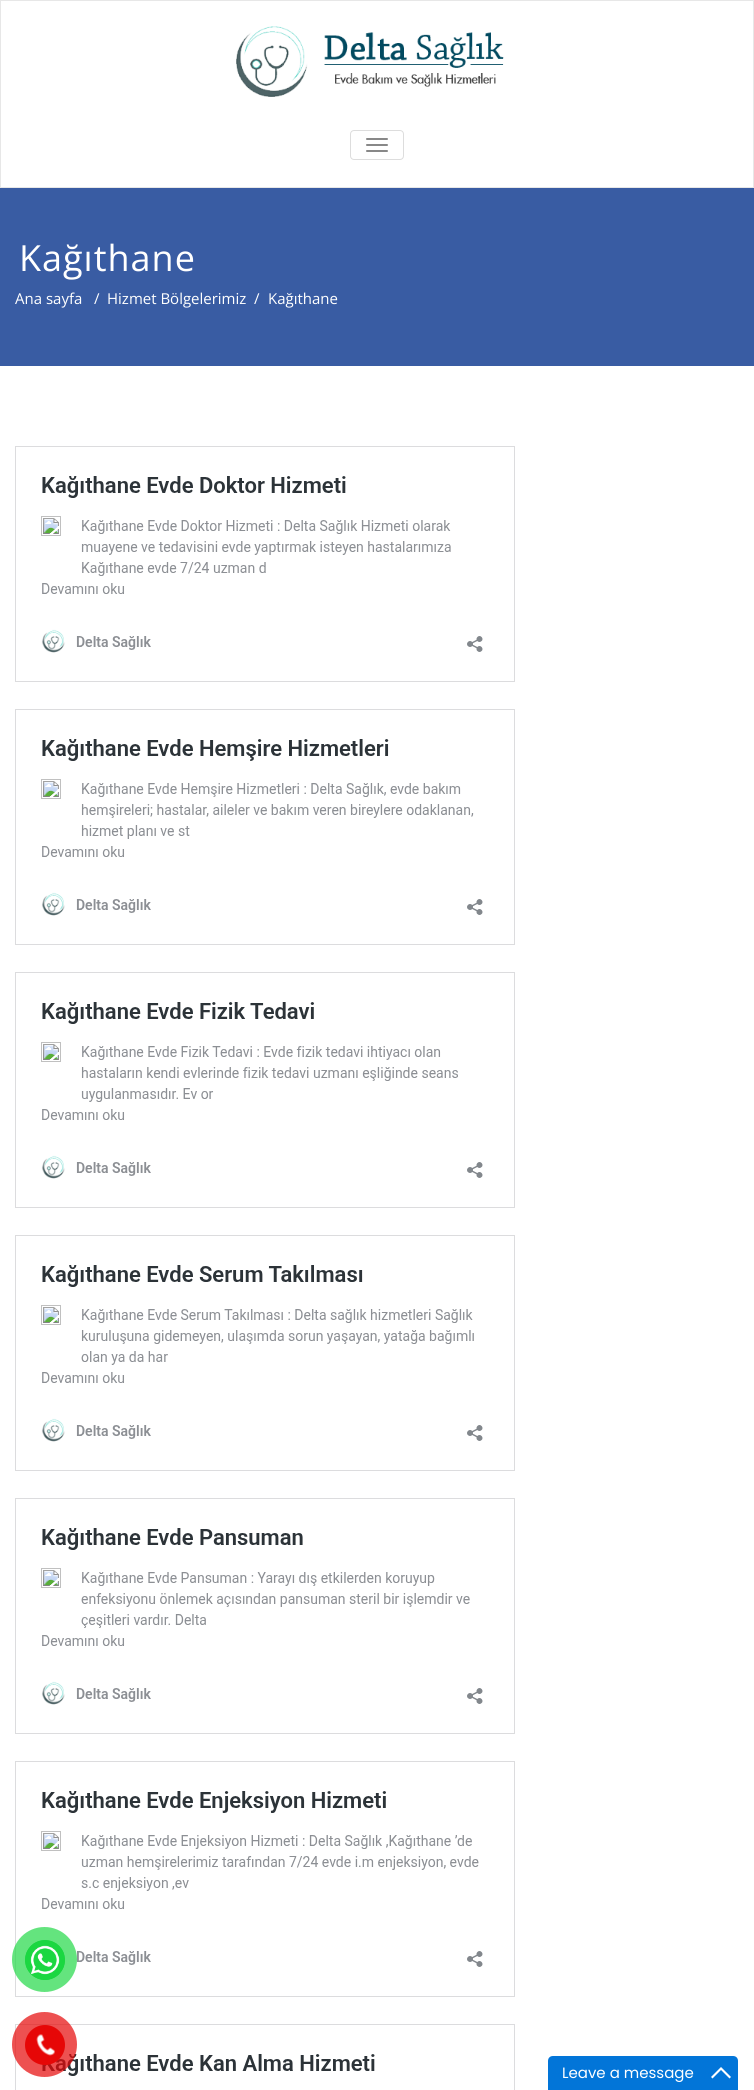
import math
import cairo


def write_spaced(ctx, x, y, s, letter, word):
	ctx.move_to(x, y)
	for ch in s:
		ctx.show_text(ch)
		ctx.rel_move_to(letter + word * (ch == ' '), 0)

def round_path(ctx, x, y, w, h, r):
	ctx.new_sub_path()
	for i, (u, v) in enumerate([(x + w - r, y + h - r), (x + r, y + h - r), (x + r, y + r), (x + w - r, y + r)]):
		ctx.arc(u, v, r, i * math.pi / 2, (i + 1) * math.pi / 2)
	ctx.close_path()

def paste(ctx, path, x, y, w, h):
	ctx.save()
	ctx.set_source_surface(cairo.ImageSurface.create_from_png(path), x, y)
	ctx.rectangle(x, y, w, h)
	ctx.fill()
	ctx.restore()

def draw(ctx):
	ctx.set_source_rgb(1, 1, 1)
	ctx.paint()
	ctx.rectangle(0.5, 0.5, 753, 187)
	ctx.set_source_rgb(0.906, 0.906, 0.906)
	ctx.set_line_width(1)
	ctx.stroke()
	paste(ctx, 'media/1.png', 236, 26, 268, 71)
	round_path(ctx, 350.5, 130.5, 53, 29, 3.5)
	ctx.set_source_rgb(0.867, 0.867, 0.867)
	ctx.stroke()
	ctx.set_source_rgb(0.533, 0.533, 0.533)
	round_path(ctx, 366, 138, 22, 2, 1)
	ctx.fill()
	round_path(ctx, 366, 144, 22, 2, 1)
	ctx.fill()
	round_path(ctx, 366, 150, 22, 2, 1)
	ctx.fill()
	ctx.set_source_rgb(0.224, 0.361, 0.639)
	ctx.rectangle(0, 188, 754, 178)
	ctx.fill()
	ctx.select_font_face('Open Sans')
	ctx.set_font_size(36)
	ctx.set_source_rgb(1, 1, 1)
	write_spaced(ctx, 19, 271, 'Kağıthane', 1, 0)
	ctx.set_font_size(15)
	for x, y, s in [
		(15, 304, 'Ana sayfa'),
		(94, 304, '/'),
		(107, 304, 'Hizmet Bölgelerimiz'),
		(254, 304, '/'),
		(268, 304, 'Kağıthane'),
	]:
		ctx.move_to(x, y)
		ctx.show_text(s)
	paste(ctx, 'media/2.png', 15, 446, 500, 236)
	paste(ctx, 'media/3.png', 15, 709, 500, 236)
	paste(ctx, 'media/4.png', 15, 972, 500, 236)
	paste(ctx, 'media/5.png', 15, 1235, 500, 236)
	paste(ctx, 'media/6.png', 15, 1498, 500, 236)
	paste(ctx, 'media/7.png', 15, 1761, 500, 236)
	paste(ctx, 'media/8.png', 15, 2024, 500, 66)
	ctx.set_source_rgba(0.137, 0.851, 0.282, 0.7)
	ctx.arc(44.5, 1959.5, 32.5, 0, 2 * math.pi)
	ctx.fill()
	ctx.set_source_rgb(0.11, 0.843, 0.255)
	ctx.arc(45, 1960, 20, 0, 2 * math.pi)
	ctx.fill()
	paste(ctx, 'media/9.png', 25, 1940, 40, 40)
	ctx.set_source_rgba(0.902, 0.031, 0.031, 0.7)
	ctx.arc(44.5, 2044.5, 32.5, 0, 2 * math.pi)
	ctx.fill()
	ctx.set_source_rgb(0.902, 0.031, 0.031)
	ctx.arc(45, 2045, 20, 0, 2 * math.pi)
	ctx.fill()
	paste(ctx, 'media/10.png', 36, 2034, 19, 22)
	ctx.set_source_rgb(0.008, 0.459, 0.847)
	ctx.new_path()
	ctx.move_to(553, 2056)
	ctx.line_to(733, 2056)
	ctx.curve_to(736, 2056, 738, 2058, 738, 2061)
	ctx.line_to(738, 2090)
	ctx.line_to(548, 2090)
	ctx.line_to(548, 2061)
	ctx.curve_to(548, 2058, 550, 2056, 553, 2056)
	ctx.close_path()
	ctx.fill()
	ctx.select_font_face('Poppins')
	ctx.set_source_rgb(1, 1, 1)
	ctx.move_to(562, 2078)
	ctx.show_text('Leave a message')
	ctx.new_path()
	ctx.move_to(721, 2067)
	ctx.line_to(731, 2077)
	ctx.line_to(729.5, 2078.5)
	ctx.line_to(721, 2070)
	ctx.line_to(712.5, 2078.5)
	ctx.line_to(711, 2077)
	ctx.close_path()
	ctx.fill()


surface = cairo.ImageSurface(cairo.FORMAT_RGB24, 754, 2090)
ctx = cairo.Context(surface)
options = cairo.FontOptions()
options.set_hint_metrics(cairo.HINT_METRICS_OFF)
options.set_hint_style(cairo.HINT_STYLE_NONE)
ctx.set_font_options(options)
ctx.set_miter_limit(4)
draw(ctx)
surface.write_to_png('image.png')
